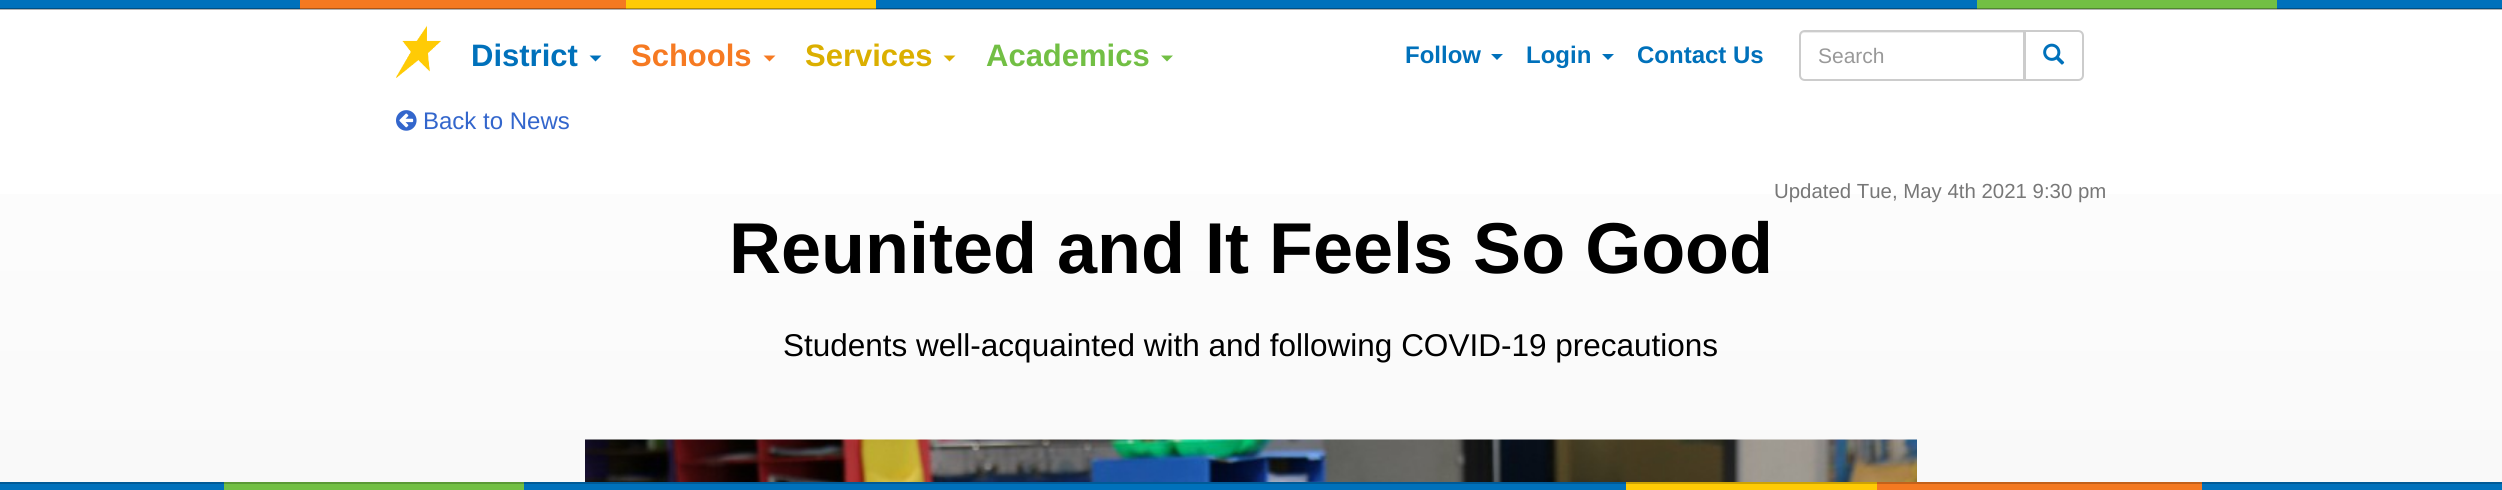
import math
import cairo


def paste(ctx, path, x, y, w, h):
	ctx.save()
	ctx.set_source_surface(cairo.ImageSurface.create_from_png(path), x, y)
	ctx.rectangle(x, y, w, h)
	ctx.fill()
	ctx.restore()

def draw(ctx):
	ctx.set_source_rgb(1, 1, 1)
	ctx.paint()
	ctx.set_source_rgb(0.702, 0.702, 0.702)
	ctx.rectangle(0, 9, 2502, 1)
	ctx.fill()
	ctx.set_source_rgb(0, 0.443, 0.733)
	ctx.rectangle(0, 0, 300, 8)
	ctx.fill()
	ctx.set_source_rgb(0, 0.31, 0.514)
	ctx.rectangle(0, 8, 300, 1)
	ctx.fill()
	ctx.set_source_rgb(0.957, 0.475, 0.129)
	ctx.rectangle(300, 0, 326, 8)
	ctx.fill()
	ctx.set_source_rgb(0.671, 0.333, 0.09)
	ctx.rectangle(300, 8, 326, 1)
	ctx.fill()
	ctx.set_source_rgb(1, 0.796, 0.02)
	ctx.rectangle(626, 0, 250, 8)
	ctx.fill()
	ctx.set_source_rgb(0.702, 0.557, 0.016)
	ctx.rectangle(626, 8, 250, 1)
	ctx.fill()
	ctx.set_source_rgb(0, 0.443, 0.733)
	ctx.rectangle(876, 0, 1101, 8)
	ctx.fill()
	ctx.set_source_rgb(0, 0.31, 0.514)
	ctx.rectangle(876, 8, 1101, 1)
	ctx.fill()
	ctx.set_source_rgb(0.447, 0.749, 0.267)
	ctx.rectangle(1977, 0, 300, 8)
	ctx.fill()
	ctx.set_source_rgb(0.314, 0.525, 0.188)
	ctx.rectangle(1977, 8, 300, 1)
	ctx.fill()
	ctx.set_source_rgb(0, 0.443, 0.733)
	ctx.rectangle(2277, 0, 225, 8)
	ctx.fill()
	ctx.set_source_rgb(0, 0.31, 0.514)
	ctx.rectangle(2277, 8, 225, 1)
	ctx.fill()
	paste(ctx, 'media/1.png', 396, 25, 45, 53)
	ctx.select_font_face('Liberation Sans', cairo.FONT_SLANT_NORMAL, cairo.FONT_WEIGHT_BOLD)
	ctx.set_font_size(31)
	ctx.set_source_rgb(0, 0.443, 0.733)
	ctx.move_to(471, 66)
	ctx.show_text('District')
	ctx.new_path()
	ctx.move_to(589.5, 55.5)
	ctx.line_to(601.5, 55.5)
	ctx.line_to(595.5, 61.5)
	ctx.close_path()
	ctx.fill()
	ctx.set_source_rgb(0.961, 0.478, 0.133)
	ctx.move_to(631, 66)
	ctx.show_text('Schools')
	ctx.new_path()
	ctx.move_to(763.5, 55.5)
	ctx.line_to(775.5, 55.5)
	ctx.line_to(769.5, 61.5)
	ctx.close_path()
	ctx.fill()
	ctx.set_source_rgb(0.859, 0.686, 0)
	ctx.move_to(805, 66)
	ctx.show_text('Services')
	ctx.new_path()
	ctx.move_to(943.5, 55.5)
	ctx.line_to(955.5, 55.5)
	ctx.line_to(949.5, 61.5)
	ctx.close_path()
	ctx.fill()
	ctx.set_source_rgb(0.447, 0.749, 0.267)
	ctx.move_to(986, 66)
	ctx.show_text('Academics')
	ctx.new_path()
	ctx.move_to(1161, 55.5)
	ctx.line_to(1173, 55.5)
	ctx.line_to(1167, 61.5)
	ctx.close_path()
	ctx.fill()
	ctx.set_font_size(24)
	ctx.set_source_rgb(0, 0.443, 0.733)
	ctx.move_to(1405, 63)
	ctx.show_text('Follow')
	ctx.new_path()
	ctx.move_to(1491, 54)
	ctx.line_to(1503, 54)
	ctx.line_to(1497, 60)
	ctx.close_path()
	ctx.fill()
	ctx.move_to(1526, 63)
	ctx.show_text('Login')
	ctx.new_path()
	ctx.move_to(1602, 54)
	ctx.line_to(1614, 54)
	ctx.line_to(1608, 60)
	ctx.close_path()
	ctx.fill()
	ctx.move_to(1637, 63)
	ctx.show_text('Contact Us')
	ctx.set_source_rgb(0.925, 0.925, 0.925)
	ctx.new_path()
	ctx.move_to(1804, 33)
	ctx.line_to(2024, 33)
	ctx.line_to(2024, 32)
	ctx.line_to(1805, 32)
	ctx.curve_to(1802, 32, 1800, 35, 1800, 38)
	ctx.curve_to(1800, 35, 1802, 33, 1804, 33)
	ctx.close_path()
	ctx.fill()
	ctx.new_path()
	ctx.move_to(1805, 31)
	ctx.line_to(2024, 31)
	ctx.line_to(2024, 80)
	ctx.line_to(1805, 80)
	ctx.curve_to(1802, 80, 1800, 78, 1800, 75)
	ctx.line_to(1800, 36)
	ctx.curve_to(1800, 33, 1802, 31, 1805, 31)
	ctx.close_path()
	ctx.set_source_rgb(0.8, 0.8, 0.8)
	ctx.stroke()
	ctx.select_font_face('Liberation Sans')
	ctx.set_font_size(21)
	ctx.set_source_rgb(0.6, 0.6, 0.6)
	ctx.move_to(1818, 63)
	ctx.show_text('Search')
	ctx.set_source_rgb(1, 1, 1)
	ctx.new_path()
	ctx.move_to(2025, 31)
	ctx.line_to(2078, 31)
	ctx.curve_to(2081, 31, 2083, 33, 2083, 36)
	ctx.line_to(2083, 75)
	ctx.curve_to(2083, 78, 2081, 80, 2078, 80)
	ctx.line_to(2025, 80)
	ctx.close_path()
	ctx.fill_preserve()
	ctx.set_source_rgb(0.8, 0.8, 0.8)
	ctx.stroke()
	paste(ctx, 'media/2.png', 2043, 43, 22, 22)
	paste(ctx, 'media/3.png', 396, 110, 21, 21)
	ctx.set_font_size(24)
	ctx.set_source_rgb(0.2, 0.4, 0.8)
	ctx.move_to(423, 129)
	ctx.show_text('Back to News')
	gradient = cairo.LinearGradient(1251, 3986, 1251, 156)
	gradient.add_color_stop_rgba(0.1, 0.945, 0.945, 0.945, 1)
	gradient.add_color_stop_rgba(0.9, 0.973, 0.973, 0.973, 1)
	gradient.add_color_stop_rgba(1, 0.992, 0.992, 0.992, 1)
	ctx.set_source(gradient)
	ctx.rectangle(0, 194, 2502, 288)
	ctx.fill()
	ctx.set_font_size(20.4)
	ctx.set_source_rgb(0.467, 0.467, 0.467)
	ctx.move_to(1774, 198)
	ctx.show_text('Updated Tue, May 4th 2021 9:30 pm')
	ctx.select_font_face('Liberation Sans', cairo.FONT_SLANT_NORMAL, cairo.FONT_WEIGHT_BOLD)
	ctx.set_font_size(72)
	ctx.set_source_rgb(0, 0, 0)
	ctx.move_to(729, 273)
	ctx.show_text('Reunited and It Feels So Good')
	ctx.select_font_face('Liberation Sans')
	ctx.set_font_size(31.5)
	ctx.move_to(783, 356)
	ctx.show_text('Students well-acquainted with and following COVID-19 precautions')
	paste(ctx, 'media/4.png', 585, 439, 1332, 43)
	ctx.set_source_rgb(0, 0.443, 0.733)
	ctx.rectangle(2202, 482, 300, 8)
	ctx.fill()
	ctx.set_source_rgb(0.957, 0.475, 0.129)
	ctx.rectangle(1877, 482, 325, 8)
	ctx.fill()
	ctx.set_source_rgb(1, 0.796, 0.02)
	ctx.rectangle(1626, 482, 251, 8)
	ctx.fill()
	ctx.set_source_rgb(0, 0.443, 0.733)
	ctx.rectangle(524, 482, 1102, 8)
	ctx.fill()
	ctx.set_source_rgb(0.447, 0.749, 0.267)
	ctx.rectangle(224, 482, 300, 8)
	ctx.fill()
	ctx.set_source_rgb(0, 0.443, 0.733)
	ctx.rectangle(0, 482, 224, 8)
	ctx.fill()
	ctx.set_source_rgba(0, 0, 0, 0.2)
	ctx.rectangle(0, 482, 2502, 2)
	ctx.fill()


surface = cairo.ImageSurface(cairo.FORMAT_RGB24, 2502, 490)
ctx = cairo.Context(surface)
options = cairo.FontOptions()
options.set_hint_metrics(cairo.HINT_METRICS_OFF)
options.set_hint_style(cairo.HINT_STYLE_NONE)
ctx.set_font_options(options)
ctx.set_miter_limit(4)
draw(ctx)
surface.write_to_png('image.png')
